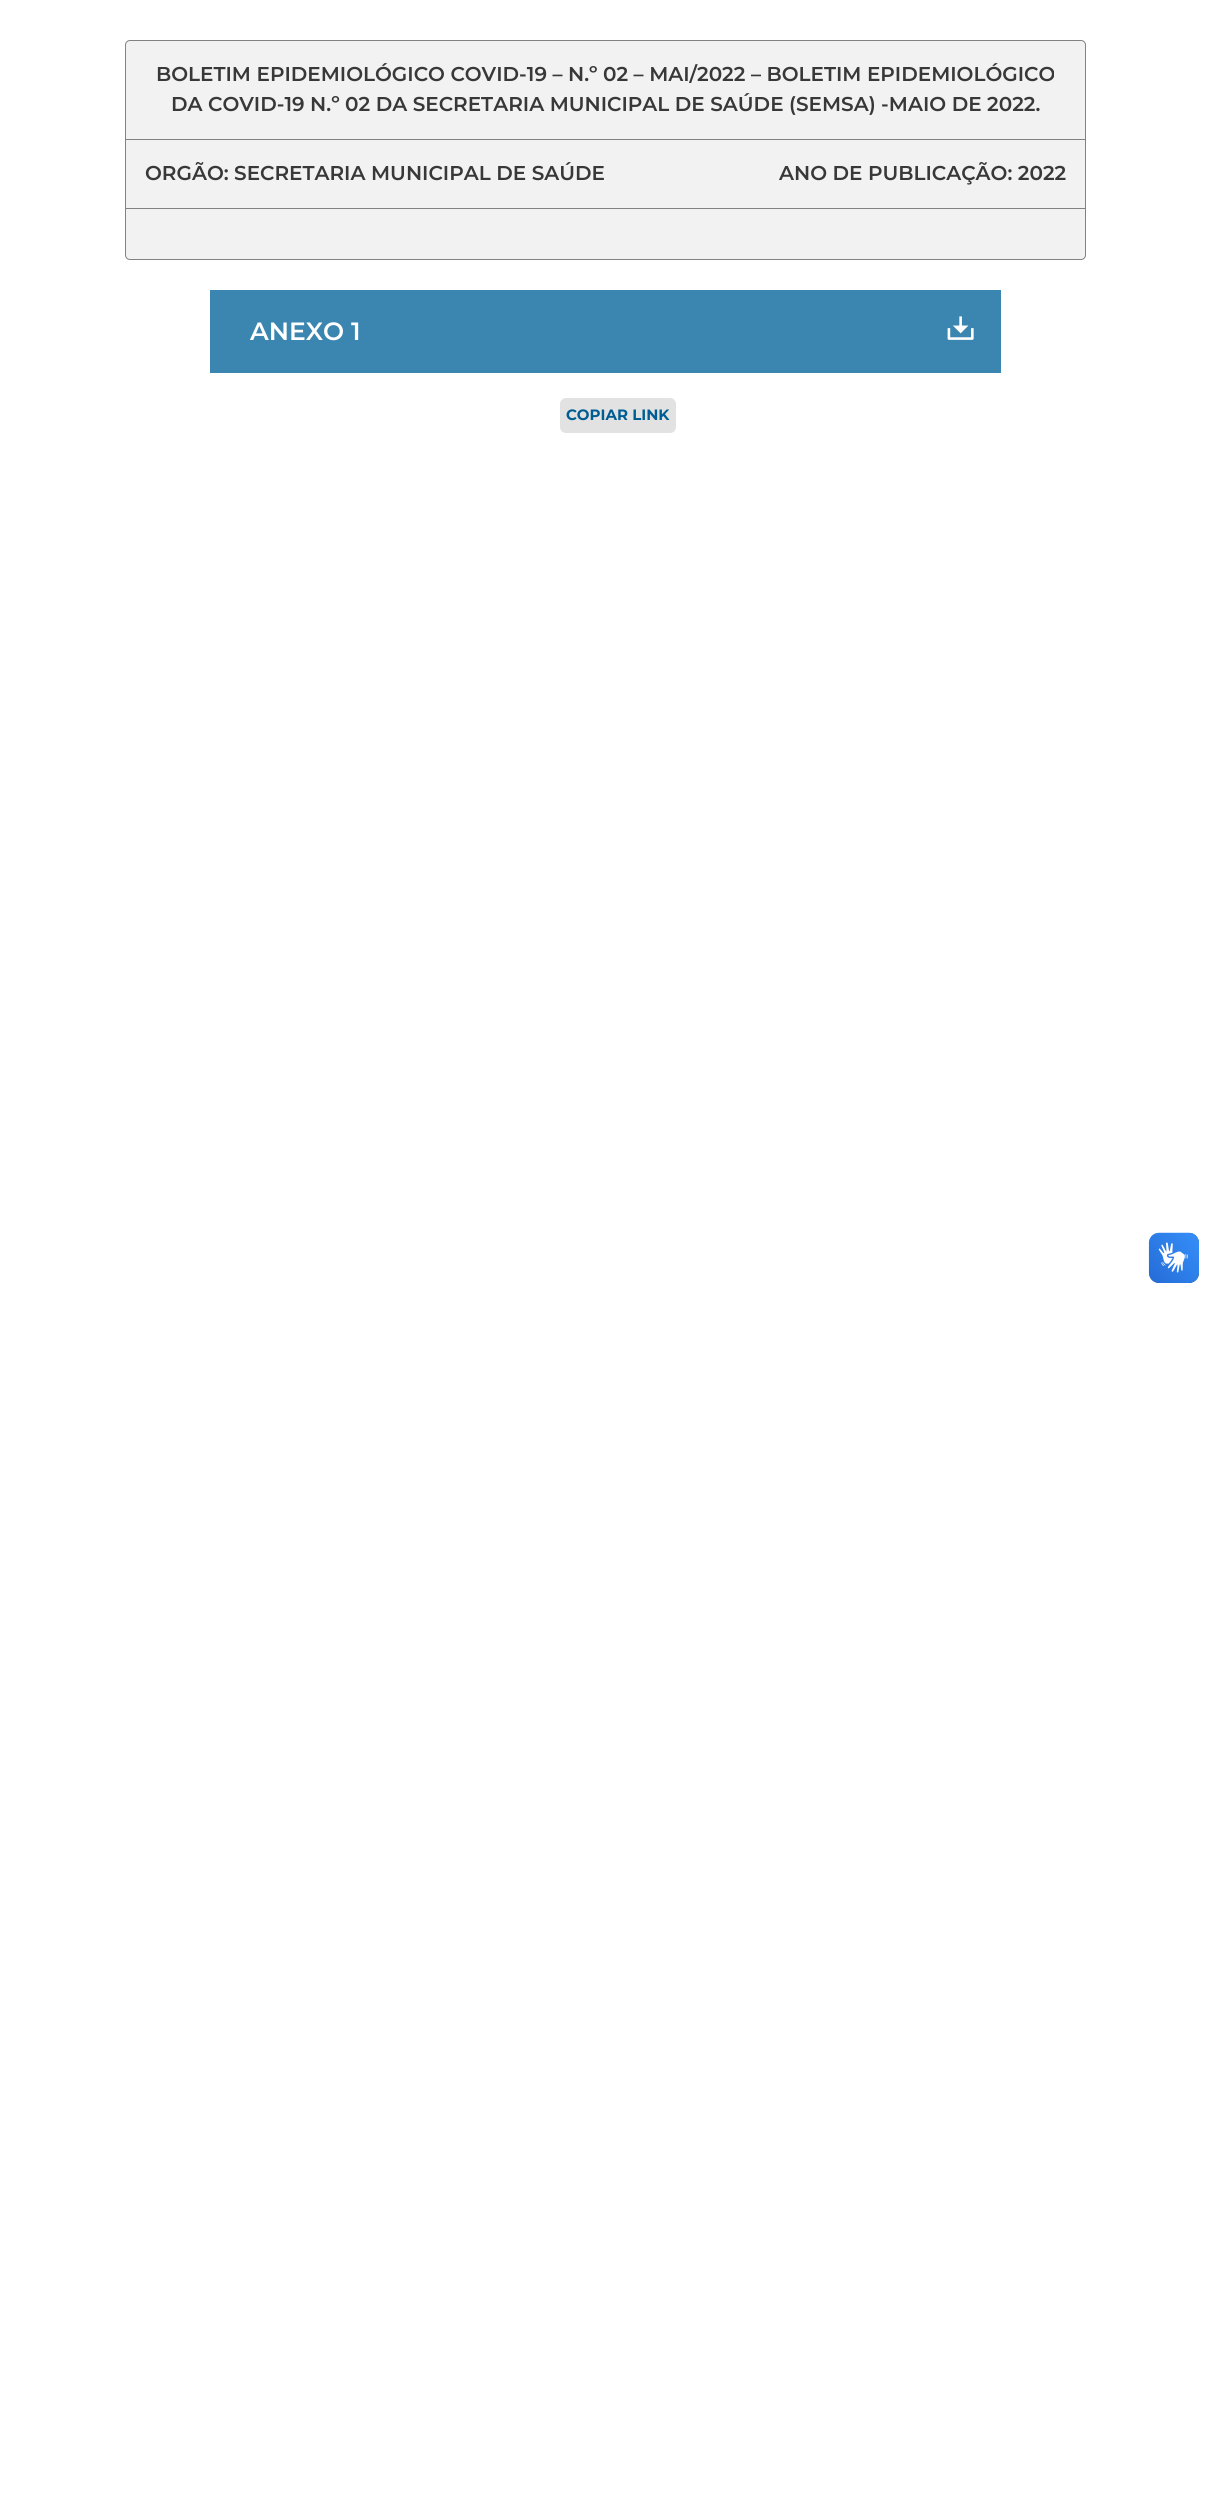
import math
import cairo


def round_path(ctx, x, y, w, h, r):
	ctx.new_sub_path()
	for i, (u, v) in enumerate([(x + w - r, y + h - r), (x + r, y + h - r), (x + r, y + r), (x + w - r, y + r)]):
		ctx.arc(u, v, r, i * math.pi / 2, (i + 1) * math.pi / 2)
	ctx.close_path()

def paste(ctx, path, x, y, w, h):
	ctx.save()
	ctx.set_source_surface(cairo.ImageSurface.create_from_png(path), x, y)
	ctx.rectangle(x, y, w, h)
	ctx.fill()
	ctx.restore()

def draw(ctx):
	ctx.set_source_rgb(1, 1, 1)
	ctx.paint()
	ctx.set_source_rgb(0.949, 0.949, 0.949)
	round_path(ctx, 125.5, 40.5, 960, 219, 4.5)
	ctx.fill_preserve()
	ctx.set_source_rgb(0.51, 0.51, 0.51)
	ctx.set_line_width(1)
	ctx.stroke()
	ctx.rectangle(126, 139, 959, 1)
	ctx.fill()
	ctx.select_font_face('Montserrat SemiBold')
	ctx.set_font_size(20)
	ctx.set_source_rgb(0.22, 0.22, 0.22)
	ctx.move_to(156, 81)
	ctx.show_text('BOLETIM EPIDEMIOLÓGICO COVID-19 – N.º 02 – MAI/2022 – BOLETIM EPIDEMIOLÓGICO')
	ctx.move_to(171, 111)
	ctx.show_text('DA COVID-19 N.º 02 DA SECRETARIA MUNICIPAL DE SAÚDE (SEMSA) -MAIO DE 2022.')
	ctx.set_source_rgb(0.51, 0.51, 0.51)
	ctx.rectangle(126, 208, 959, 1)
	ctx.fill()
	ctx.set_source_rgb(0.22, 0.22, 0.22)
	ctx.move_to(145, 180)
	ctx.show_text('ORGÃO: SECRETARIA MUNICIPAL DE SAÚDE')
	ctx.move_to(779, 180)
	ctx.show_text('ANO DE PUBLICAÇÃO: 2022')
	ctx.set_source_rgb(0.231, 0.525, 0.69)
	ctx.rectangle(210, 290, 791, 83)
	ctx.fill()
	ctx.set_font_size(25)
	ctx.set_source_rgb(1, 1, 1)
	ctx.move_to(250, 340)
	ctx.show_text('ANEXO 1')
	paste(ctx, 'media/1.png', 947, 316, 27, 24)
	ctx.set_source_rgb(0.886, 0.886, 0.886)
	round_path(ctx, 560, 398, 116, 35, 6)
	ctx.fill()
	ctx.select_font_face('Montserrat', cairo.FONT_SLANT_NORMAL, cairo.FONT_WEIGHT_BOLD)
	ctx.set_font_size(15)
	ctx.set_source_rgb(0, 0.365, 0.573)
	ctx.move_to(566, 420)
	ctx.show_text('COPIAR LINK')
	ctx.set_source_rgb(0, 0.306, 0.565)
	round_path(ctx, 1149, 1233, 50, 50, 10)
	ctx.fill()
	paste(ctx, 'media/2.png', 1148, 1232, 51, 51)
	paste(ctx, 'media/3.png', 1149, 1233, 50, 50)


surface = cairo.ImageSurface(cairo.FORMAT_RGB24, 1211, 2513)
ctx = cairo.Context(surface)
options = cairo.FontOptions()
options.set_hint_metrics(cairo.HINT_METRICS_OFF)
options.set_hint_style(cairo.HINT_STYLE_NONE)
ctx.set_font_options(options)
ctx.set_miter_limit(4)
draw(ctx)
surface.write_to_png('image.png')
